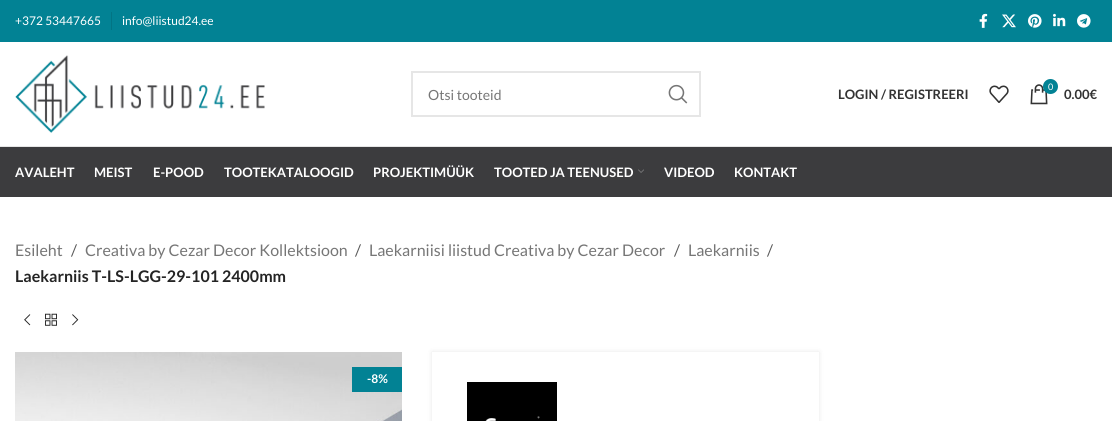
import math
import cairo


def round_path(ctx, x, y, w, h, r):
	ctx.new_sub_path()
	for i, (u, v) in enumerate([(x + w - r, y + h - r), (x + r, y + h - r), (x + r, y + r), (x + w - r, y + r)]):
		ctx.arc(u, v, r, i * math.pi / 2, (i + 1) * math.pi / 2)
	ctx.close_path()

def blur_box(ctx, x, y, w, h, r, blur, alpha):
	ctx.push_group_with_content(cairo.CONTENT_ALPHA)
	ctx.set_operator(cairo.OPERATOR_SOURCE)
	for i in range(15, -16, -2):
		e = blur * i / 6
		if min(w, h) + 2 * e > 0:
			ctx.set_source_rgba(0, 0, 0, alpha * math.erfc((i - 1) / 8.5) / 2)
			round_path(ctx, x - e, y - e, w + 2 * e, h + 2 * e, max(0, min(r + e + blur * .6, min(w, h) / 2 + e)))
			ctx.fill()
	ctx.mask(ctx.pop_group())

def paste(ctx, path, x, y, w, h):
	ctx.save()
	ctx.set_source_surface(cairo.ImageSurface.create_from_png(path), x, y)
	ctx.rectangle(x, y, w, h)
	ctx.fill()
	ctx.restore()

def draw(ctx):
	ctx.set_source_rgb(1, 1, 1)
	ctx.paint()
	ctx.set_source_rgb(0.008, 0.51, 0.58)
	ctx.rectangle(0, 0, 1112, 42)
	ctx.fill()
	ctx.select_font_face('Lato')
	ctx.set_font_size(12)
	ctx.set_source_rgb(1, 1, 1)
	ctx.move_to(15, 25)
	ctx.show_text('+372 53447665')
	ctx.set_source_rgb(0.008, 0.455, 0.518)
	ctx.rectangle(111, 12, 1, 18)
	ctx.fill()
	ctx.set_source_rgb(1, 1, 1)
	ctx.move_to(122, 25)
	ctx.show_text('info@liistud24.ee')
	paste(ctx, 'media/1.png', 979, 13, 9, 15)
	paste(ctx, 'media/2.png', 1002, 14, 14, 14)
	paste(ctx, 'media/3.png', 1028, 14, 14, 14)
	paste(ctx, 'media/4.png', 1053, 13, 13, 14)
	paste(ctx, 'media/5.png', 1077, 14, 14, 14)
	ctx.set_source_rgb(0.902, 0.902, 0.902)
	ctx.rectangle(0, 146, 1112, 1)
	ctx.fill()
	paste(ctx, 'media/6.png', 15, 55, 250, 78)
	ctx.rectangle(412, 72, 288, 44)
	ctx.stroke()
	ctx.set_font_size(14)
	ctx.set_source_rgb(0.463, 0.463, 0.463)
	ctx.move_to(428, 100)
	ctx.show_text('Otsi tooteid')
	paste(ctx, 'media/7.png', 668, 84, 20, 20)
	ctx.select_font_face('Lato', cairo.FONT_SLANT_NORMAL, cairo.FONT_WEIGHT_BOLD)
	ctx.set_font_size(13)
	ctx.set_source_rgb(0.2, 0.2, 0.2)
	ctx.move_to(838, 99)
	ctx.show_text('LOGIN / REGISTREERI')
	paste(ctx, 'media/8.png', 989, 85, 20, 18)
	paste(ctx, 'media/9.png', 1030, 84, 18, 21)
	ctx.set_source_rgb(0.008, 0.51, 0.58)
	ctx.arc(1050.5, 86.5, 7.5, 0, 2 * math.pi)
	ctx.fill()
	ctx.select_font_face('Lato')
	ctx.set_font_size(9)
	ctx.set_source_rgb(1, 1, 1)
	ctx.move_to(1048, 90)
	ctx.show_text('0')
	ctx.select_font_face('Lato', cairo.FONT_SLANT_NORMAL, cairo.FONT_WEIGHT_BOLD)
	ctx.set_font_size(13)
	ctx.set_source_rgb(0.2, 0.2, 0.2)
	ctx.move_to(1064, 99)
	ctx.show_text('0.00€')
	ctx.set_source_rgb(0.235, 0.235, 0.243)
	ctx.rectangle(0, 147, 1112, 50)
	ctx.fill()
	ctx.set_source_rgb(1, 1, 1)
	for x, y, s in [
		(15, 177, 'AVALEHT'),
		(94, 177, 'MEIST'),
		(153, 177, 'E-POOD'),
		(224, 177, 'TOOTEKATALOOGID'),
		(373, 177, 'PROJEKTIMÜÜK'),
		(494, 177, 'TOOTED JA TEENUSED'),
	]:
		ctx.move_to(x, y)
		ctx.show_text(s)
	paste(ctx, 'media/10.png', 638, 169, 6, 4)
	ctx.move_to(664, 177)
	ctx.show_text('VIDEOD')
	ctx.move_to(734, 177)
	ctx.show_text('KONTAKT')
	ctx.select_font_face('Lato')
	ctx.set_font_size(16)
	ctx.set_source_rgb(0.463, 0.463, 0.463)
	ctx.move_to(15, 256)
	ctx.show_text('Esileht')
	ctx.set_source_rgb(0.349, 0.349, 0.349)
	ctx.move_to(71, 256)
	ctx.show_text('/')
	ctx.set_source_rgb(0.463, 0.463, 0.463)
	ctx.move_to(85, 256)
	ctx.show_text('Creativa by Cezar Decor Kollektsioon')
	ctx.set_source_rgb(0.349, 0.349, 0.349)
	ctx.move_to(355, 256)
	ctx.show_text('/')
	ctx.set_source_rgb(0.463, 0.463, 0.463)
	ctx.move_to(369, 256)
	ctx.show_text('Laekarniisi liistud Creativa by Cezar Decor')
	ctx.set_source_rgb(0.349, 0.349, 0.349)
	ctx.move_to(674, 256)
	ctx.show_text('/')
	ctx.set_source_rgb(0.463, 0.463, 0.463)
	ctx.move_to(688, 256)
	ctx.show_text('Laekarniis')
	ctx.set_source_rgb(0.349, 0.349, 0.349)
	ctx.move_to(767, 256)
	ctx.show_text('/')
	ctx.select_font_face('Lato', cairo.FONT_SLANT_NORMAL, cairo.FONT_WEIGHT_BOLD)
	ctx.set_source_rgb(0.141, 0.141, 0.141)
	ctx.move_to(15, 282)
	ctx.show_text('Laekarniis T-LS-LGG-29-101 2400mm')
	paste(ctx, 'media/11.png', 24, 314, 7, 12)
	paste(ctx, 'media/12.png', 45, 313, 12, 13)
	paste(ctx, 'media/13.png', 72, 314, 7, 12)
	paste(ctx, 'media/14.png', 15, 352, 387, 69)
	ctx.set_source_rgb(0.008, 0.51, 0.58)
	ctx.rectangle(352, 367, 50, 25)
	ctx.fill()
	ctx.set_font_size(12)
	ctx.set_source_rgb(1, 1, 1)
	ctx.move_to(367, 383)
	ctx.show_text('-8%')
	ctx.save()
	ctx.set_fill_rule(cairo.FILL_RULE_EVEN_ODD)
	ctx.new_path()
	ctx.move_to(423, 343)
	ctx.line_to(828, 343)
	ctx.line_to(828, 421)
	ctx.line_to(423, 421)
	ctx.close_path()
	ctx.move_to(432, 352)
	ctx.line_to(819, 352)
	ctx.line_to(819, 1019)
	ctx.line_to(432, 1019)
	ctx.close_path()
	ctx.clip()
	ctx.set_source_rgb(0, 0, 0)
	blur_box(ctx, 432, 352, 387, 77, 0, 2.5, 0.1)
	ctx.restore()
	paste(ctx, 'media/15.png', 467, 382, 90, 39)


surface = cairo.ImageSurface(cairo.FORMAT_RGB24, 1112, 421)
ctx = cairo.Context(surface)
options = cairo.FontOptions()
options.set_hint_metrics(cairo.HINT_METRICS_OFF)
options.set_hint_style(cairo.HINT_STYLE_NONE)
ctx.set_font_options(options)
ctx.set_miter_limit(4)
draw(ctx)
surface.write_to_png('image.png')
